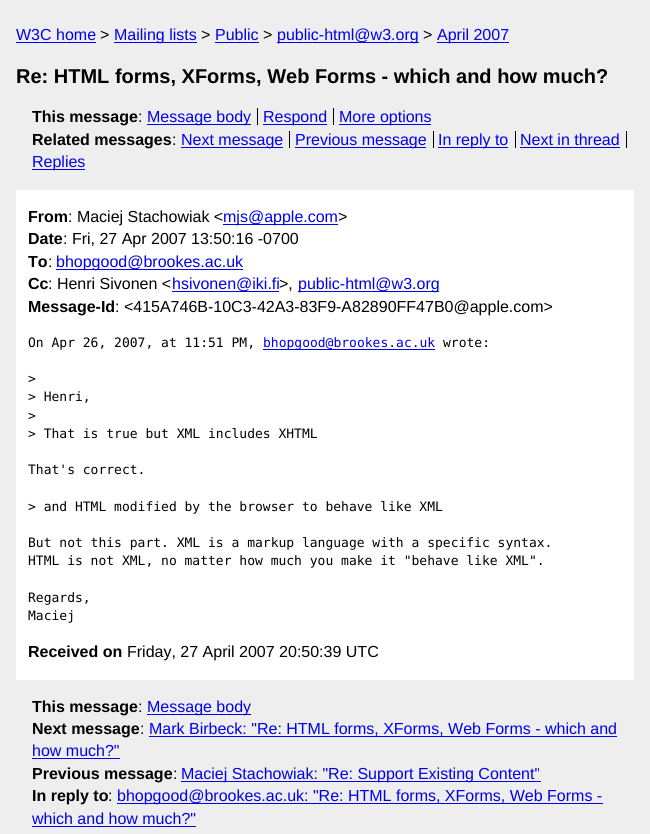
import math
import cairo


def draw(ctx):
	ctx.set_source_rgb(0.933, 0.933, 0.933)
	ctx.paint()
	ctx.select_font_face('Liberation Sans')
	ctx.set_font_size(16)
	ctx.set_source_rgb(0, 0, 0.933)
	ctx.move_to(16, 40)
	ctx.show_text('W3C home')
	ctx.rectangle(16, 42, 80, 1)
	ctx.fill()
	ctx.set_source_rgb(0, 0, 0)
	ctx.move_to(100, 40)
	ctx.show_text('>')
	ctx.set_source_rgb(0, 0, 0.933)
	ctx.rectangle(114, 42, 83, 1)
	ctx.fill()
	ctx.move_to(114, 40)
	ctx.show_text('Mailing lists')
	ctx.set_source_rgb(0, 0, 0)
	ctx.move_to(201, 40)
	ctx.show_text('>')
	ctx.set_source_rgb(0, 0, 0.933)
	ctx.move_to(215, 40)
	ctx.show_text('Public')
	ctx.rectangle(215, 42, 44, 1)
	ctx.fill()
	ctx.set_source_rgb(0, 0, 0)
	ctx.move_to(263, 40)
	ctx.show_text('>')
	ctx.set_source_rgb(0, 0, 0.933)
	ctx.rectangle(277, 42, 142, 1)
	ctx.fill()
	ctx.move_to(277, 40)
	ctx.show_text('public-html@w3.org')
	ctx.set_source_rgb(0, 0, 0)
	ctx.move_to(423, 40)
	ctx.show_text('>')
	ctx.set_source_rgb(0, 0, 0.933)
	ctx.rectangle(437, 42, 72, 1)
	ctx.fill()
	ctx.move_to(437, 40)
	ctx.show_text('April 2007')
	ctx.select_font_face('Liberation Sans', cairo.FONT_SLANT_NORMAL, cairo.FONT_WEIGHT_BOLD)
	ctx.set_font_size(20)
	ctx.set_source_rgb(0, 0, 0)
	ctx.move_to(16, 83)
	ctx.show_text('Re: HTML forms, XForms, Web Forms - which and how much?')
	ctx.set_font_size(16)
	ctx.move_to(32, 122)
	ctx.show_text('This message')
	ctx.select_font_face('Liberation Sans')
	ctx.move_to(138, 122)
	ctx.show_text(':')
	ctx.set_source_rgb(0, 0, 0.933)
	ctx.rectangle(147, 124, 104, 1)
	ctx.fill()
	ctx.move_to(147, 122)
	ctx.show_text('Message body')
	ctx.rectangle(263, 124, 64, 1)
	ctx.fill()
	ctx.move_to(263, 122)
	ctx.show_text('Respond')
	ctx.set_source_rgb(0, 0, 0)
	ctx.rectangle(257, 108, 1, 17)
	ctx.fill()
	ctx.set_source_rgb(0, 0, 0.933)
	ctx.rectangle(339, 124, 92, 1)
	ctx.fill()
	ctx.move_to(339, 122)
	ctx.show_text('More options')
	ctx.set_source_rgb(0, 0, 0)
	ctx.rectangle(333, 108, 1, 17)
	ctx.fill()
	ctx.select_font_face('Liberation Sans', cairo.FONT_SLANT_NORMAL, cairo.FONT_WEIGHT_BOLD)
	ctx.move_to(32, 145)
	ctx.show_text('Related messages')
	ctx.select_font_face('Liberation Sans')
	ctx.move_to(172, 145)
	ctx.show_text(':')
	ctx.set_source_rgb(0, 0, 0.933)
	ctx.rectangle(181, 147, 102, 1)
	ctx.fill()
	ctx.move_to(181, 145)
	ctx.show_text('Next message')
	ctx.rectangle(295, 147, 131, 1)
	ctx.fill()
	ctx.move_to(295, 145)
	ctx.show_text('Previous message')
	ctx.set_source_rgb(0, 0, 0)
	ctx.rectangle(289, 131, 1, 17)
	ctx.fill()
	ctx.set_source_rgb(0, 0, 0.933)
	ctx.rectangle(438, 147, 70, 1)
	ctx.fill()
	ctx.move_to(438, 145)
	ctx.show_text('In reply to')
	ctx.set_source_rgb(0, 0, 0)
	ctx.rectangle(433, 131, 1, 17)
	ctx.fill()
	ctx.set_source_rgb(0, 0, 0.933)
	ctx.move_to(520, 145)
	ctx.show_text('Next in thread')
	ctx.set_source_rgb(0, 0, 0)
	ctx.rectangle(515, 131, 1, 17)
	ctx.rectangle(626, 131, 1, 17)
	ctx.fill()
	ctx.set_source_rgb(0, 0, 0.933)
	ctx.rectangle(520, 147, 100, 1)
	ctx.rectangle(32, 169, 53, 1)
	ctx.fill()
	ctx.move_to(32, 167)
	ctx.show_text('Replies')
	ctx.set_source_rgb(1, 1, 1)
	ctx.rectangle(16, 190, 618, 490)
	ctx.fill()
	ctx.select_font_face('Liberation Sans', cairo.FONT_SLANT_NORMAL, cairo.FONT_WEIGHT_BOLD)
	ctx.set_source_rgb(0, 0, 0)
	ctx.move_to(28, 222)
	ctx.show_text('From')
	ctx.select_font_face('Liberation Sans')
	ctx.move_to(68, 222)
	ctx.show_text(': Maciej Stachowiak <')
	ctx.set_source_rgb(0, 0, 0.933)
	ctx.rectangle(223, 224, 115, 1)
	ctx.fill()
	ctx.move_to(223, 222)
	ctx.show_text('mjs@apple.com')
	ctx.set_source_rgb(0, 0, 0)
	ctx.move_to(338, 222)
	ctx.show_text('>')
	ctx.select_font_face('Liberation Sans', cairo.FONT_SLANT_NORMAL, cairo.FONT_WEIGHT_BOLD)
	ctx.move_to(28, 244)
	ctx.show_text('Date')
	ctx.select_font_face('Liberation Sans')
	ctx.move_to(63, 244)
	ctx.show_text(': Fri, 27 Apr 2007 13:50:16 -0700')
	ctx.select_font_face('Liberation Sans', cairo.FONT_SLANT_NORMAL, cairo.FONT_WEIGHT_BOLD)
	ctx.move_to(28, 267)
	ctx.show_text('To')
	ctx.select_font_face('Liberation Sans')
	ctx.move_to(48, 267)
	ctx.show_text(':')
	ctx.set_source_rgb(0, 0, 0.933)
	ctx.rectangle(56, 269, 187, 1)
	ctx.fill()
	ctx.move_to(56, 267)
	ctx.show_text('bhopgood@brookes.ac.uk')
	ctx.select_font_face('Liberation Sans', cairo.FONT_SLANT_NORMAL, cairo.FONT_WEIGHT_BOLD)
	ctx.set_source_rgb(0, 0, 0)
	ctx.move_to(28, 289)
	ctx.show_text('Cc')
	ctx.select_font_face('Liberation Sans')
	ctx.move_to(48, 289)
	ctx.show_text(': Henri Sivonen <')
	ctx.set_source_rgb(0, 0, 0.933)
	ctx.rectangle(172, 291, 107, 1)
	ctx.fill()
	ctx.move_to(172, 289)
	ctx.show_text('hsivonen@iki.fi')
	ctx.set_source_rgb(0, 0, 0)
	ctx.move_to(279, 289)
	ctx.show_text('>,')
	ctx.set_source_rgb(0, 0, 0.933)
	ctx.rectangle(298, 291, 141, 1)
	ctx.fill()
	ctx.move_to(298, 289)
	ctx.show_text('public-html@w3.org')
	ctx.select_font_face('Liberation Sans', cairo.FONT_SLANT_NORMAL, cairo.FONT_WEIGHT_BOLD)
	ctx.set_source_rgb(0, 0, 0)
	ctx.move_to(28, 312)
	ctx.show_text('Message-Id')
	ctx.select_font_face('Liberation Sans')
	ctx.move_to(115, 312)
	ctx.show_text(': <415A746B-10C3-42A3-83F9-A82890FF47B0@apple.com>')
	ctx.select_font_face('DejaVu Sans Mono')
	ctx.set_font_size(13)
	ctx.move_to(28, 347)
	ctx.show_text('On Apr 26, 2007, at 11:51 PM,')
	ctx.set_source_rgb(0, 0, 0.933)
	ctx.rectangle(263, 349, 172, 1)
	ctx.fill()
	ctx.move_to(263, 347)
	ctx.show_text('bhopgood@brookes.ac.uk')
	ctx.set_source_rgb(0, 0, 0)
	for x, y, s in [
		(443, 347, 'wrote:'),
		(28, 383, '>'),
		(28, 401, '> Henri,'),
		(28, 420, '>'),
		(28, 438, '> That is true but XML includes XHTML'),
		(28, 474, 'That\'s correct.'),
		(28, 511, '> and HTML modified by the browser to behave like XML'),
		(28, 547, 'But not this part. XML is a markup language with a specific syntax.'),
		(28, 565, 'HTML is not XML, no matter how much you make it "behave like XML".'),
		(28, 602, 'Regards,'),
		(28, 620, 'Maciej'),
	]:
		ctx.move_to(x, y)
		ctx.show_text(s)
	ctx.select_font_face('Liberation Sans', cairo.FONT_SLANT_NORMAL, cairo.FONT_WEIGHT_BOLD)
	ctx.set_font_size(16)
	ctx.move_to(28, 657)
	ctx.show_text('Received on')
	ctx.select_font_face('Liberation Sans')
	ctx.move_to(127, 657)
	ctx.show_text('Friday, 27 April 2007 20:50:39 UTC')
	ctx.select_font_face('Liberation Sans', cairo.FONT_SLANT_NORMAL, cairo.FONT_WEIGHT_BOLD)
	ctx.move_to(32, 712)
	ctx.show_text('This message')
	ctx.select_font_face('Liberation Sans')
	ctx.move_to(138, 712)
	ctx.show_text(':')
	ctx.set_source_rgb(0, 0, 0.933)
	ctx.rectangle(147, 714, 104, 1)
	ctx.fill()
	ctx.move_to(147, 712)
	ctx.show_text('Message body')
	ctx.select_font_face('Liberation Sans', cairo.FONT_SLANT_NORMAL, cairo.FONT_WEIGHT_BOLD)
	ctx.set_source_rgb(0, 0, 0)
	ctx.move_to(32, 734)
	ctx.show_text('Next message')
	ctx.select_font_face('Liberation Sans')
	ctx.move_to(140, 734)
	ctx.show_text(':')
	ctx.set_source_rgb(0, 0, 0.933)
	ctx.rectangle(149, 736, 468, 1)
	ctx.fill()
	ctx.move_to(149, 734)
	ctx.show_text('Mark Birbeck: "Re: HTML forms, XForms, Web Forms - which and')
	ctx.move_to(32, 756)
	ctx.show_text('how much?"')
	ctx.rectangle(32, 758, 88, 1)
	ctx.fill()
	ctx.select_font_face('Liberation Sans', cairo.FONT_SLANT_NORMAL, cairo.FONT_WEIGHT_BOLD)
	ctx.set_source_rgb(0, 0, 0)
	ctx.move_to(32, 779)
	ctx.show_text('Previous message')
	ctx.select_font_face('Liberation Sans')
	ctx.move_to(173, 779)
	ctx.show_text(':')
	ctx.set_source_rgb(0, 0, 0.933)
	ctx.rectangle(181, 781, 360, 1)
	ctx.fill()
	ctx.move_to(181, 779)
	ctx.show_text('Maciej Stachowiak: "Re: Support Existing Content"')
	ctx.select_font_face('Liberation Sans', cairo.FONT_SLANT_NORMAL, cairo.FONT_WEIGHT_BOLD)
	ctx.set_source_rgb(0, 0, 0)
	ctx.move_to(32, 801)
	ctx.show_text('In reply to')
	ctx.select_font_face('Liberation Sans')
	ctx.move_to(108, 801)
	ctx.show_text(':')
	ctx.set_source_rgb(0, 0, 0.933)
	ctx.rectangle(117, 803, 486, 1)
	ctx.fill()
	ctx.move_to(117, 801)
	ctx.show_text('bhopgood@brookes.ac.uk: "Re: HTML forms, XForms, Web Forms -')
	ctx.move_to(32, 824)
	ctx.show_text('which and how much?"')
	ctx.rectangle(32, 826, 164, 1)
	ctx.fill()


surface = cairo.ImageSurface(cairo.FORMAT_RGB24, 650, 834)
ctx = cairo.Context(surface)
options = cairo.FontOptions()
options.set_hint_metrics(cairo.HINT_METRICS_OFF)
options.set_hint_style(cairo.HINT_STYLE_NONE)
ctx.set_font_options(options)
ctx.set_miter_limit(4)
draw(ctx)
surface.write_to_png('image.png')
